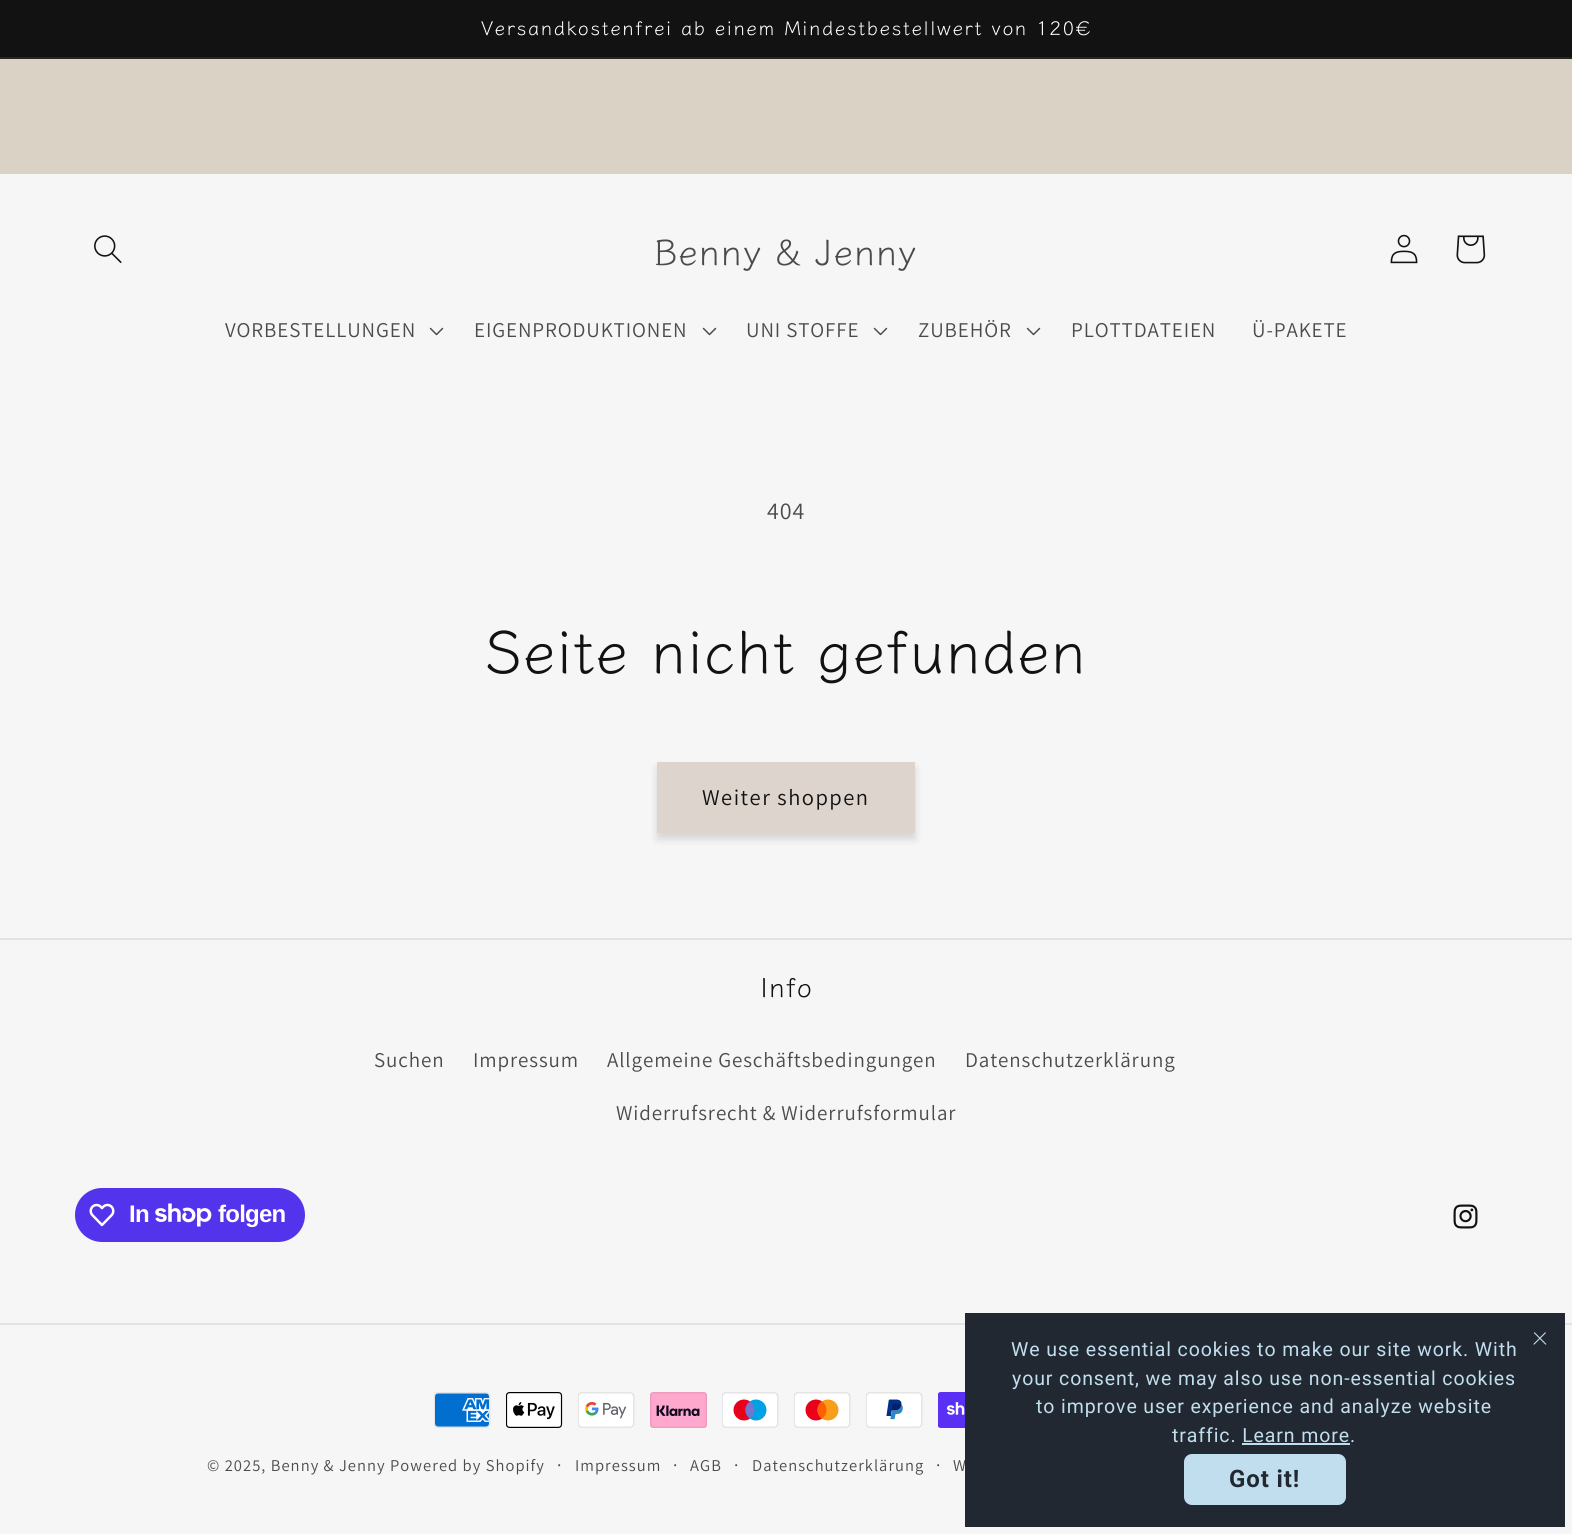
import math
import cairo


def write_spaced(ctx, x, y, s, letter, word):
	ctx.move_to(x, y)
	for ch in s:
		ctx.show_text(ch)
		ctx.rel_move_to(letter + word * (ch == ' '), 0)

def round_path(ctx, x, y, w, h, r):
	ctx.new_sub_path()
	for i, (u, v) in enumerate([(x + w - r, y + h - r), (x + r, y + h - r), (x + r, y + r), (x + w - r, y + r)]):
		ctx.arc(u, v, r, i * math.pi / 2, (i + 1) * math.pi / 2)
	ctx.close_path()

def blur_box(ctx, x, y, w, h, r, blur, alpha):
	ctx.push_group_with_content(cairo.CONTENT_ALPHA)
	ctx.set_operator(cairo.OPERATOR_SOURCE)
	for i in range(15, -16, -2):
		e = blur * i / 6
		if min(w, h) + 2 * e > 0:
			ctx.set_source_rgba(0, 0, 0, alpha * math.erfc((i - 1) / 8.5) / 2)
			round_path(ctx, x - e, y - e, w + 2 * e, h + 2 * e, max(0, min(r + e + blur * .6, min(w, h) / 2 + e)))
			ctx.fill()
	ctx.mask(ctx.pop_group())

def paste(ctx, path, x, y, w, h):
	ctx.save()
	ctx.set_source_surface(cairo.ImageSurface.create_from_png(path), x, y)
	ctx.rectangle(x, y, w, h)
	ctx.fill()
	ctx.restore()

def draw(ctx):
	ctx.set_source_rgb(0.961, 0.961, 0.961)
	ctx.paint()
	ctx.set_source_rgb(0.071, 0.071, 0.071)
	ctx.rectangle(0, 0, 1572, 57)
	ctx.fill()
	ctx.set_source_rgb(0.145, 0.145, 0.145)
	ctx.rectangle(0, 57, 1572, 2)
	ctx.fill()
	ctx.select_font_face('Klee One')
	ctx.set_font_size(19.5)
	ctx.set_source_rgb(1, 1, 1)
	write_spaced(ctx, 481, 35, 'Versandkostenfrei ab einem Mindestbestellwert von 120€', 1.5, 0)
	ctx.set_source_rgb(0.855, 0.827, 0.773)
	ctx.rectangle(0, 59, 1572, 115)
	ctx.fill()
	paste(ctx, 'media/1.png', 94, 235, 28, 28)
	ctx.set_font_size(36)
	ctx.set_source_rgb(0.294, 0.294, 0.294)
	write_spaced(ctx, 654, 265, 'Benny & Jenny', 0.9, 0)
	paste(ctx, 'media/2.png', 1390, 234, 28, 30)
	paste(ctx, 'media/3.png', 1456, 235, 30, 29)
	ctx.select_font_face('Assistant')
	ctx.set_font_size(21)
	write_spaced(ctx, 225, 337, 'VORBESTELLUNGEN', 0.9, 0)
	paste(ctx, 'media/4.png', 429, 327, 15, 9)
	write_spaced(ctx, 474, 337, 'EIGENPRODUKTIONEN', 0.9, 0)
	paste(ctx, 'media/4.png', 702, 327, 15, 9)
	write_spaced(ctx, 746, 337, 'UNI STOFFE', 0.9, 0)
	paste(ctx, 'media/4.png', 873, 327, 15, 9)
	write_spaced(ctx, 918, 337, 'ZUBEHÖR', 0.9, 0)
	paste(ctx, 'media/4.png', 1026, 327, 15, 9)
	write_spaced(ctx, 1071, 337, 'PLOTTDATEIEN', 0.9, 0)
	write_spaced(ctx, 1252, 337, 'Ü-PAKETE', 0.9, 0)
	ctx.set_font_size(24)
	write_spaced(ctx, 767, 519, '404', 0.9, 0)
	ctx.select_font_face('Klee One')
	ctx.set_font_size(60)
	ctx.set_source_rgb(0.071, 0.071, 0.071)
	write_spaced(ctx, 485, 673, 'Seite nicht gefunden', 0.9, 0)
	ctx.set_source_rgb(0.071, 0.071, 0.071)
	blur_box(ctx, 657, 768, 258, 71, 0, 4, 0.15)
	ctx.set_source_rgb(0.867, 0.835, 0.804)
	ctx.rectangle(657, 762, 258, 71)
	ctx.fill()
	ctx.select_font_face('Assistant')
	ctx.set_font_size(22.5)
	ctx.set_source_rgb(0.071, 0.071, 0.071)
	write_spaced(ctx, 702, 805, 'Weiter shoppen', 1.5, 0)
	ctx.set_source_rgb(0.89, 0.89, 0.89)
	ctx.rectangle(0, 938, 1572, 2)
	ctx.fill()
	ctx.select_font_face('Klee One')
	ctx.set_font_size(27)
	ctx.set_source_rgb(0.071, 0.071, 0.071)
	write_spaced(ctx, 760, 997, 'Info', 0.9, 0)
	ctx.select_font_face('Assistant')
	ctx.set_font_size(21)
	ctx.set_source_rgb(0.294, 0.294, 0.294)
	for x, y, s in [
		(374, 1067, 'Suchen'),
		(473, 1067, 'Impressum'),
		(607, 1067, 'Allgemeine Geschäftsbedingungen'),
		(965, 1067, 'Datenschutzerklärung'),
		(616, 1120, 'Widerrufsrecht & Widerrufsformular'),
	]:
		write_spaced(ctx, x, y, s, 0.9, 0)
	ctx.set_source_rgb(0.329, 0.2, 0.922)
	round_path(ctx, 75, 1188, 230, 54, 27)
	ctx.fill()
	paste(ctx, 'media/5.png', 89, 1203, 26, 24)
	ctx.select_font_face('Liberation Sans', cairo.FONT_SLANT_NORMAL, cairo.FONT_WEIGHT_BOLD)
	ctx.set_font_size(24)
	ctx.set_source_rgb(1, 1, 1)
	write_spaced(ctx, 129, 1222, 'In', -0.75, 0)
	paste(ctx, 'media/6.png', 155, 1203, 57, 24)
	write_spaced(ctx, 218, 1222, 'folgen', -0.75, 0)
	paste(ctx, 'media/7.png', 1453, 1204, 25, 25)
	ctx.set_source_rgb(0.89, 0.89, 0.89)
	ctx.rectangle(0, 1323, 1572, 2)
	ctx.fill()
	paste(ctx, 'media/8.png', 434, 1392, 57, 36)
	paste(ctx, 'media/9.png', 506, 1392, 57, 36)
	paste(ctx, 'media/10.png', 578, 1392, 57, 36)
	paste(ctx, 'media/11.png', 650, 1392, 57, 36)
	paste(ctx, 'media/12.png', 722, 1392, 57, 36)
	paste(ctx, 'media/13.png', 794, 1392, 57, 36)
	paste(ctx, 'media/14.png', 866, 1392, 57, 36)
	paste(ctx, 'media/15.png', 938, 1392, 27, 36)
	ctx.select_font_face('Assistant')
	ctx.set_font_size(16.5)
	ctx.set_source_rgb(0.294, 0.294, 0.294)
	write_spaced(ctx, 207, 1471, '© 2025, Benny & Jenny', 1.05, 0)
	write_spaced(ctx, 390, 1471, 'Powered by Shopify', 1.05, 0)
	ctx.set_font_size(18)
	write_spaced(ctx, 557, 1471, '·', 1.05, 0)
	ctx.set_font_size(16.5)
	write_spaced(ctx, 575, 1471, 'Impressum', 1.05, 0)
	ctx.set_font_size(18)
	write_spaced(ctx, 673, 1471, '·', 1.05, 0)
	ctx.set_font_size(16.5)
	write_spaced(ctx, 690, 1471, 'AGB', 1.05, 0)
	ctx.set_font_size(18)
	write_spaced(ctx, 734, 1471, '·', 1.05, 0)
	ctx.set_font_size(16.5)
	write_spaced(ctx, 752, 1471, 'Datenschutzerklärung', 1.05, 0)
	ctx.set_font_size(18)
	write_spaced(ctx, 936, 1471, '·', 1.05, 0)
	ctx.set_font_size(16.5)
	write_spaced(ctx, 953, 1471, 'W', 1.05, 0)
	ctx.set_source_rgb(0.133, 0.157, 0.192)
	ctx.rectangle(965, 1313, 600, 214)
	ctx.fill()
	paste(ctx, 'media/16.png', 1533, 1332, 14, 13)
	ctx.select_font_face('Roboto')
	ctx.set_font_size(19.5)
	ctx.set_source_rgb(0.753, 0.871, 0.929)
	for x, y, s in [
		(1011, 1356, 'We use essential cookies to make our site work. With'),
		(1012, 1385, 'your consent, we may also use non-essential cookies'),
		(1036, 1413, 'to improve user experience and analyze website'),
		(1172, 1442, 'traffic. Learn more.'),
	]:
		write_spaced(ctx, x, y, s, 0.9, 0)
	ctx.rectangle(1242, 1443, 108, 2)
	ctx.fill()
	round_path(ctx, 1184, 1454, 162, 51, 8)
	ctx.fill()
	ctx.select_font_face('Roboto', cairo.FONT_SLANT_NORMAL, cairo.FONT_WEIGHT_BOLD)
	ctx.set_font_size(24)
	ctx.set_source_rgb(0.133, 0.157, 0.192)
	write_spaced(ctx, 1229, 1487, 'Got it!', 0.9, 0)


surface = cairo.ImageSurface(cairo.FORMAT_RGB24, 1572, 1534)
ctx = cairo.Context(surface)
options = cairo.FontOptions()
options.set_hint_metrics(cairo.HINT_METRICS_OFF)
options.set_hint_style(cairo.HINT_STYLE_NONE)
ctx.set_font_options(options)
ctx.set_miter_limit(4)
draw(ctx)
surface.write_to_png('image.png')
